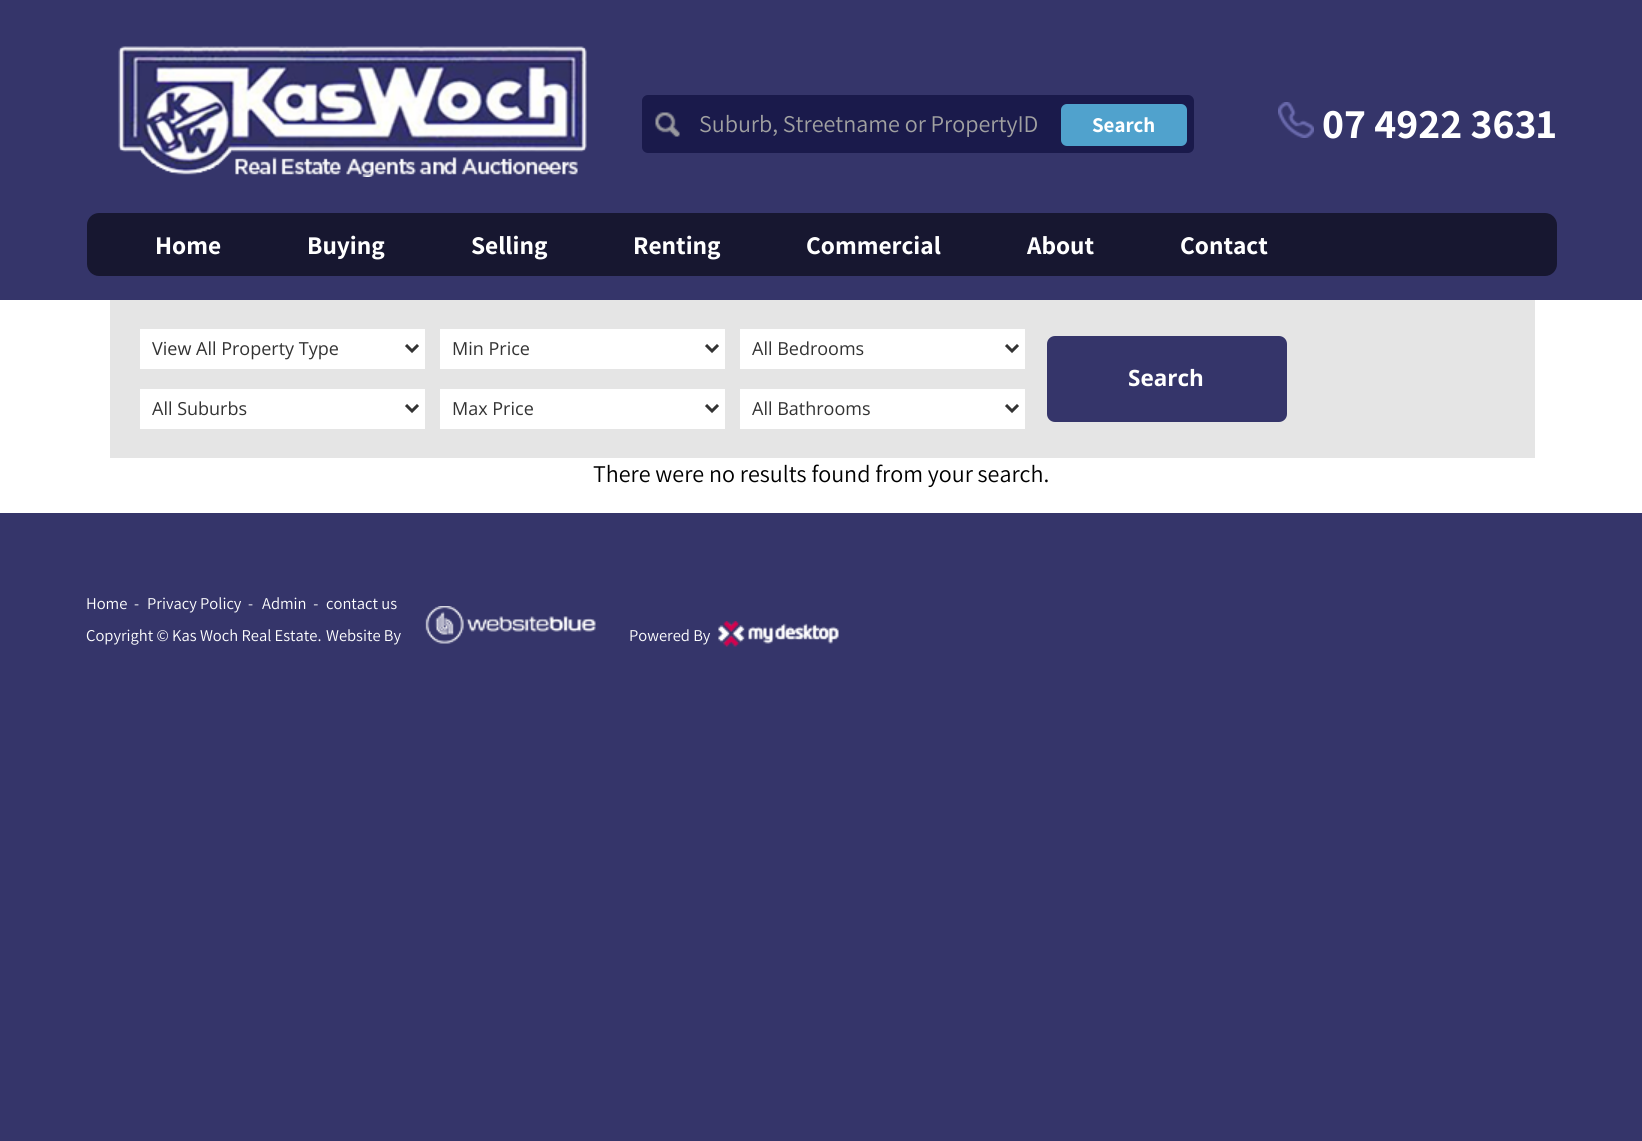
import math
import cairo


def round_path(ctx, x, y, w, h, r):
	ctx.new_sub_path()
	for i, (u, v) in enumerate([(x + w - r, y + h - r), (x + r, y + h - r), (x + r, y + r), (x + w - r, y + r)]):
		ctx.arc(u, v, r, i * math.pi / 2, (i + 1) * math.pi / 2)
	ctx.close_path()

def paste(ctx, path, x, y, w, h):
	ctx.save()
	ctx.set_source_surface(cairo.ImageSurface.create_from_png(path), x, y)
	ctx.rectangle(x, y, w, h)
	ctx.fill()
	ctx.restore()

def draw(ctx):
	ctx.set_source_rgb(0.208, 0.208, 0.416)
	ctx.paint()
	paste(ctx, 'media/1.png', 118, 46, 469, 131)
	ctx.set_source_rgb(0.102, 0.102, 0.294)
	round_path(ctx, 642, 95, 552, 58, 6)
	ctx.fill()
	paste(ctx, 'media/2.png', 655, 112, 25, 25)
	ctx.select_font_face('Assistant')
	ctx.set_font_size(24)
	ctx.set_source_rgb(0.631, 0.631, 0.631)
	ctx.move_to(699, 132)
	ctx.show_text('Suburb, Streetname or PropertyID')
	ctx.set_source_rgb(0.314, 0.635, 0.804)
	round_path(ctx, 1062, 105, 124, 40, 5)
	ctx.fill_preserve()
	ctx.stroke()
	ctx.select_font_face('Assistant', cairo.FONT_SLANT_NORMAL, cairo.FONT_WEIGHT_BOLD)
	ctx.set_font_size(21)
	ctx.set_source_rgb(1, 1, 1)
	ctx.move_to(1092, 132)
	ctx.show_text('Search')
	paste(ctx, 'media/3.png', 1278, 102, 36, 36)
	ctx.set_font_size(42)
	ctx.move_to(1322, 138)
	ctx.show_text('07 4922 3631')
	ctx.set_source_rgb(0.09, 0.09, 0.188)
	round_path(ctx, 87, 213, 1470, 63, 12)
	ctx.fill()
	ctx.set_font_size(25.5)
	ctx.set_source_rgb(1, 1, 1)
	for x, y, s in [
		(155, 254, 'Home'),
		(307, 254, 'Buying'),
		(471, 254, 'Selling'),
		(633, 254, 'Renting'),
		(806, 254, 'Commercial'),
		(1027, 254, 'About'),
		(1180, 254, 'Contact'),
	]:
		ctx.move_to(x, y)
		ctx.show_text(s)
	ctx.rectangle(0, 300, 1642, 213)
	ctx.fill()
	ctx.set_source_rgb(0.898, 0.898, 0.898)
	ctx.rectangle(110, 300, 1425, 158)
	ctx.fill()
	ctx.set_source_rgb(1, 1, 1)
	ctx.rectangle(140, 329, 285, 40)
	ctx.fill()
	ctx.new_path()
	ctx.move_to(406, 345)
	ctx.line_to(412, 351)
	ctx.line_to(418, 345)
	ctx.set_source_rgb(0.2, 0.2, 0.2)
	ctx.set_line_width(3)
	ctx.stroke()
	ctx.select_font_face('Open Sans')
	ctx.set_font_size(18)
	ctx.move_to(152, 355)
	ctx.show_text('View All Property Type')
	ctx.set_source_rgb(1, 1, 1)
	ctx.rectangle(140, 389, 285, 40)
	ctx.fill()
	ctx.new_path()
	ctx.move_to(406, 405)
	ctx.line_to(412, 411)
	ctx.line_to(418, 405)
	ctx.set_source_rgb(0.2, 0.2, 0.2)
	ctx.stroke()
	ctx.move_to(152, 415)
	ctx.show_text('All Suburbs')
	ctx.set_source_rgb(1, 1, 1)
	ctx.rectangle(440, 329, 285, 40)
	ctx.fill()
	ctx.new_path()
	ctx.move_to(706, 345)
	ctx.line_to(712, 351)
	ctx.line_to(718, 345)
	ctx.set_source_rgb(0.2, 0.2, 0.2)
	ctx.stroke()
	ctx.move_to(452, 355)
	ctx.show_text('Min Price')
	ctx.set_source_rgb(1, 1, 1)
	ctx.rectangle(440, 389, 285, 40)
	ctx.fill()
	ctx.new_path()
	ctx.move_to(706, 405)
	ctx.line_to(712, 411)
	ctx.line_to(718, 405)
	ctx.set_source_rgb(0.2, 0.2, 0.2)
	ctx.stroke()
	ctx.move_to(452, 415)
	ctx.show_text('Max Price')
	ctx.set_source_rgb(1, 1, 1)
	ctx.rectangle(740, 329, 285, 40)
	ctx.fill()
	ctx.new_path()
	ctx.move_to(1006, 345)
	ctx.line_to(1012, 351)
	ctx.line_to(1018, 345)
	ctx.set_source_rgb(0.2, 0.2, 0.2)
	ctx.stroke()
	ctx.move_to(752, 355)
	ctx.show_text('All Bedrooms')
	ctx.set_source_rgb(1, 1, 1)
	ctx.rectangle(740, 389, 285, 40)
	ctx.fill()
	ctx.new_path()
	ctx.move_to(1006, 405)
	ctx.line_to(1012, 411)
	ctx.line_to(1018, 405)
	ctx.set_source_rgb(0.2, 0.2, 0.2)
	ctx.stroke()
	ctx.move_to(752, 415)
	ctx.show_text('All Bathrooms')
	ctx.set_source_rgb(0.208, 0.208, 0.416)
	round_path(ctx, 1047, 336, 240, 86, 8)
	ctx.fill()
	ctx.select_font_face('Open Sans', cairo.FONT_SLANT_NORMAL, cairo.FONT_WEIGHT_BOLD)
	ctx.set_font_size(22.5)
	ctx.set_source_rgb(1, 1, 1)
	ctx.move_to(1128, 386)
	ctx.show_text('Search')
	ctx.select_font_face('Assistant')
	ctx.set_font_size(24)
	ctx.set_source_rgb(0, 0, 0)
	ctx.move_to(593, 482)
	ctx.show_text('There were no results found from your search.')
	ctx.set_font_size(16.5)
	ctx.set_source_rgb(1, 1, 1)
	for x, y, s in [
		(86, 609, 'Home  -'),
		(147, 609, 'Privacy Policy  -'),
		(262, 609, 'Admin  -'),
		(326, 609, 'contact us'),
		(86, 641, 'Copyright © Kas Woch Real Estate.'),
		(326, 641, 'Website By'),
	]:
		ctx.move_to(x, y)
		ctx.show_text(s)
	paste(ctx, 'media/4.png', 425, 606, 171, 38)
	ctx.move_to(629, 641)
	ctx.show_text('Powered By')
	paste(ctx, 'media/5.png', 718, 621, 121, 26)


surface = cairo.ImageSurface(cairo.FORMAT_RGB24, 1642, 1141)
ctx = cairo.Context(surface)
options = cairo.FontOptions()
options.set_hint_metrics(cairo.HINT_METRICS_OFF)
options.set_hint_style(cairo.HINT_STYLE_NONE)
ctx.set_font_options(options)
ctx.set_miter_limit(4)
draw(ctx)
surface.write_to_png('image.png')
